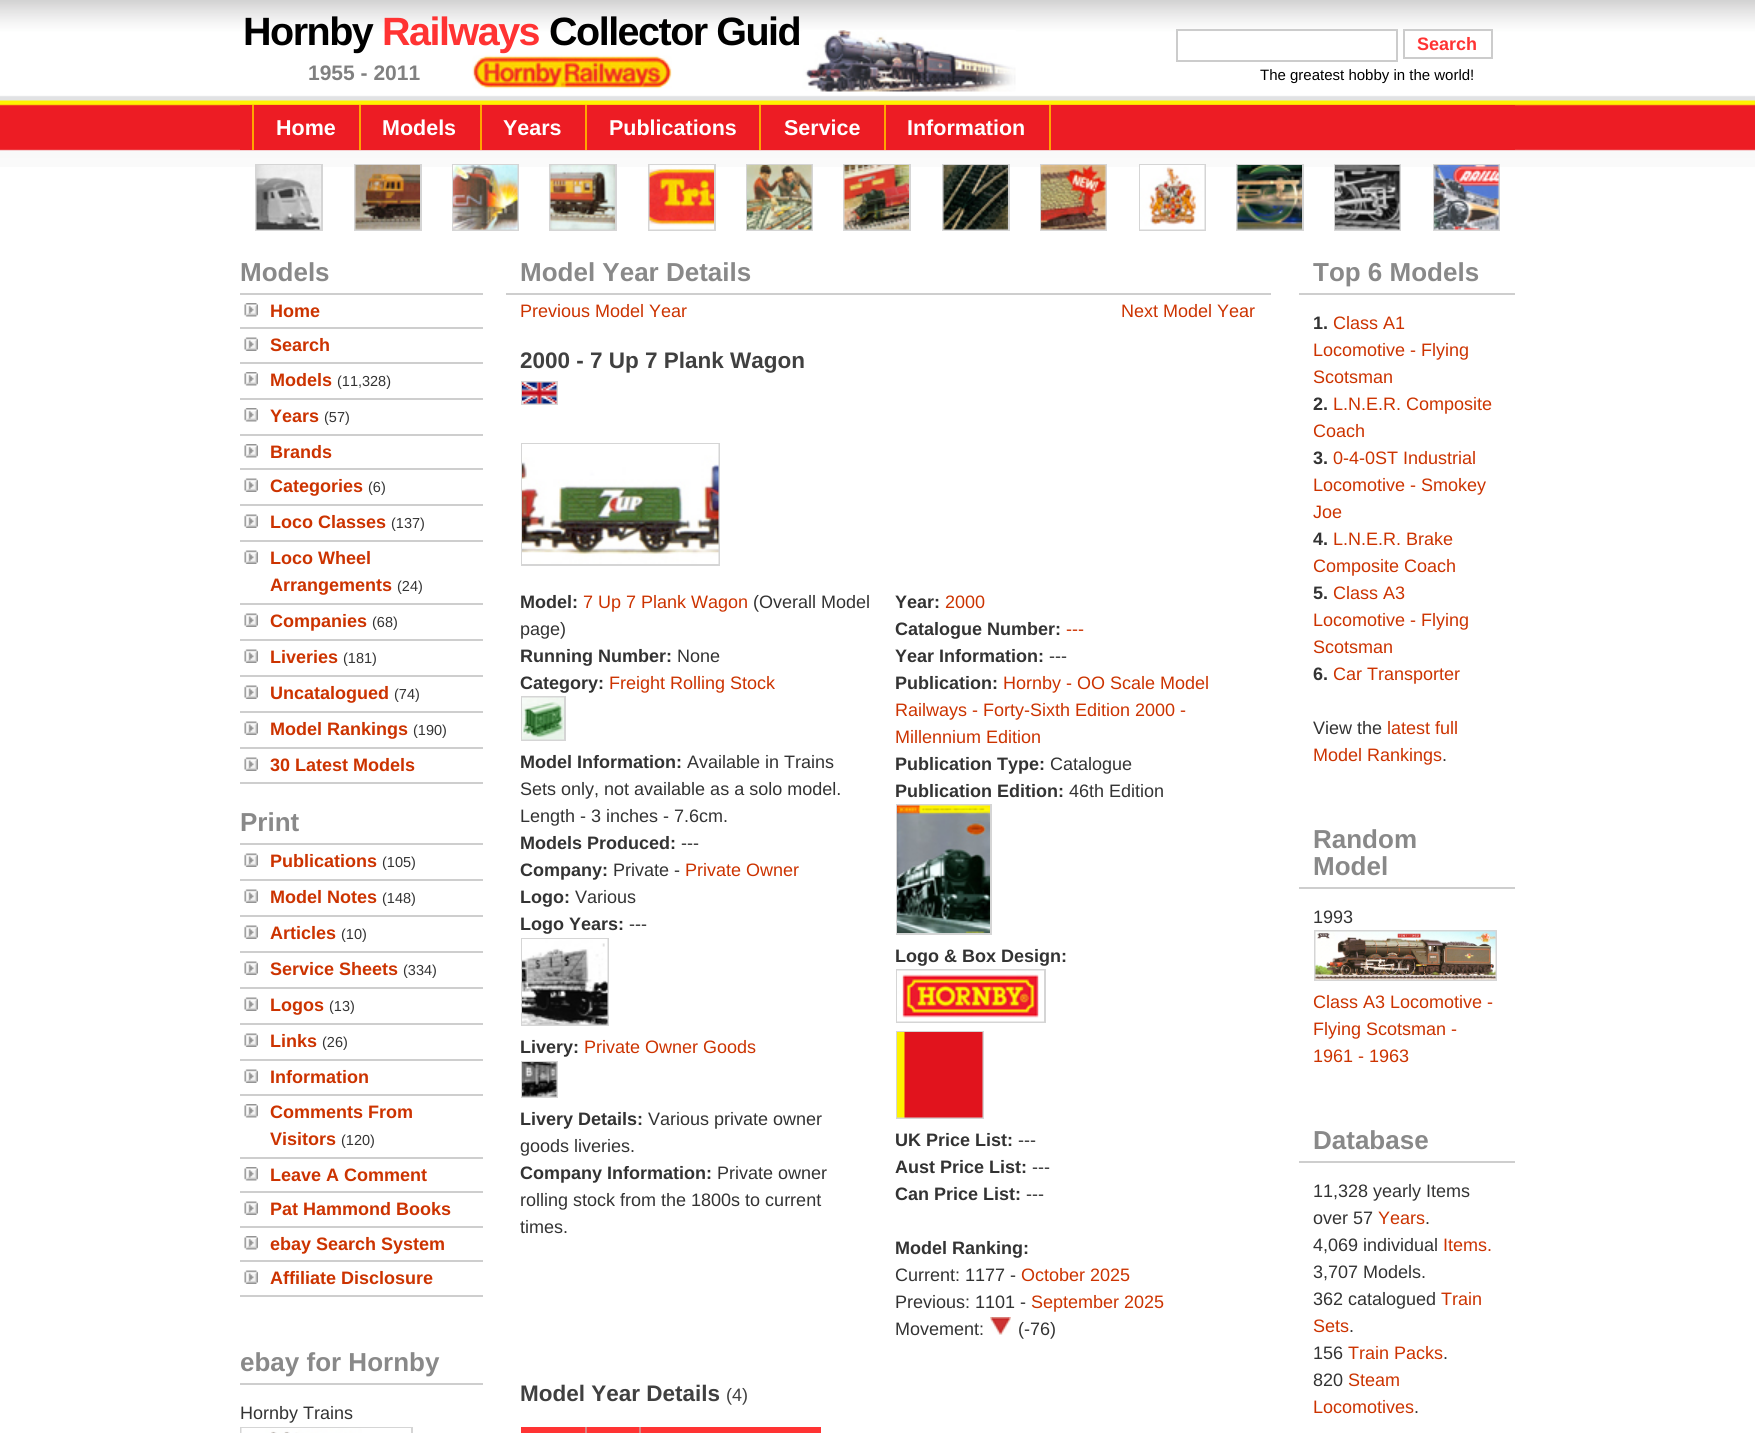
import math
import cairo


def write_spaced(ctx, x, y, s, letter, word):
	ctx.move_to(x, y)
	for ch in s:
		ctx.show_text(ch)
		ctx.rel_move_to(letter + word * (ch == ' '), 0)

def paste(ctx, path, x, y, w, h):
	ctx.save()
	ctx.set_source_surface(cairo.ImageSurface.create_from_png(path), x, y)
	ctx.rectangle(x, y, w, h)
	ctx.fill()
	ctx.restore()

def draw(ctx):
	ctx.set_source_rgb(1, 1, 1)
	ctx.paint()
	paste(ctx, 'media/1.png', 0, 0, 1755, 167)
	ctx.select_font_face('Liberation Sans', cairo.FONT_SLANT_NORMAL, cairo.FONT_WEIGHT_BOLD)
	ctx.set_font_size(39.5)
	ctx.set_source_rgb(0, 0, 0)
	write_spaced(ctx, 243, 45, 'Hornby', -1.5, 0)
	ctx.set_source_rgb(1, 0.2, 0.2)
	write_spaced(ctx, 382, 45, 'Railways', -1.5, 0)
	ctx.set_source_rgb(0, 0, 0)
	write_spaced(ctx, 549, 45, 'Collector Guid', -1.5, 0)
	paste(ctx, 'media/2.png', 802, 30, 214, 62)
	ctx.rectangle(1177, 30, 220, 31)
	ctx.set_source_rgb(0.8, 0.8, 0.8)
	ctx.stroke()
	ctx.rectangle(1404, 30, 88, 28)
	ctx.stroke()
	ctx.set_font_size(18)
	ctx.set_source_rgb(1, 0.2, 0.2)
	ctx.move_to(1417, 50)
	ctx.show_text('Search')
	ctx.set_font_size(21)
	ctx.set_source_rgb(0.502, 0.502, 0.502)
	ctx.move_to(308, 80)
	ctx.show_text('1955 - 2011')
	paste(ctx, 'media/3.png', 472, 55, 200, 34)
	ctx.select_font_face('Liberation Sans')
	ctx.set_font_size(15)
	ctx.set_source_rgb(0, 0, 0)
	ctx.move_to(1260, 80)
	ctx.show_text('The greatest hobby in the world!')
	ctx.set_source_rgb(0.929, 0.11, 0.141)
	ctx.rectangle(240, 105, 1275, 45)
	ctx.fill()
	ctx.set_source_rgb(1, 0.647, 0)
	ctx.rectangle(359, 105, 2, 45)
	ctx.rectangle(252, 105, 2, 45)
	ctx.fill()
	ctx.select_font_face('Liberation Sans', cairo.FONT_SLANT_NORMAL, cairo.FONT_WEIGHT_BOLD)
	ctx.set_font_size(21.5)
	ctx.set_source_rgb(1, 1, 1)
	ctx.move_to(276, 135)
	ctx.show_text('Home')
	ctx.set_source_rgb(1, 0.647, 0)
	ctx.rectangle(480, 105, 2, 45)
	ctx.fill()
	ctx.set_source_rgb(1, 1, 1)
	ctx.move_to(382, 135)
	ctx.show_text('Models')
	ctx.set_source_rgb(1, 0.647, 0)
	ctx.rectangle(585, 105, 2, 45)
	ctx.fill()
	ctx.set_source_rgb(1, 1, 1)
	ctx.move_to(503, 135)
	ctx.show_text('Years')
	ctx.set_source_rgb(1, 0.647, 0)
	ctx.rectangle(759, 105, 2, 45)
	ctx.fill()
	ctx.set_source_rgb(1, 1, 1)
	ctx.move_to(609, 135)
	ctx.show_text('Publications')
	ctx.set_source_rgb(1, 0.647, 0)
	ctx.rectangle(884, 105, 2, 45)
	ctx.fill()
	ctx.set_source_rgb(1, 1, 1)
	ctx.move_to(784, 135)
	ctx.show_text('Service')
	ctx.set_source_rgb(1, 0.647, 0)
	ctx.rectangle(1049, 105, 2, 45)
	ctx.fill()
	ctx.set_source_rgb(1, 1, 1)
	ctx.move_to(907, 135)
	ctx.show_text('Information')
	ctx.rectangle(256, 165, 66, 65)
	ctx.set_source_rgb(0.835, 0.835, 0.835)
	ctx.stroke()
	paste(ctx, 'media/4.png', 256, 165, 65, 65)
	ctx.rectangle(355, 165, 66, 65)
	ctx.stroke()
	paste(ctx, 'media/5.png', 355, 165, 65, 65)
	ctx.rectangle(453, 165, 65, 65)
	ctx.stroke()
	paste(ctx, 'media/6.png', 453, 165, 65, 65)
	ctx.rectangle(550, 165, 66, 65)
	ctx.stroke()
	paste(ctx, 'media/7.png', 550, 165, 65, 65)
	ctx.rectangle(649, 165, 66, 65)
	ctx.stroke()
	paste(ctx, 'media/8.png', 649, 165, 65, 65)
	ctx.rectangle(747, 165, 65, 65)
	ctx.stroke()
	paste(ctx, 'media/9.png', 747, 165, 65, 65)
	ctx.rectangle(844, 165, 66, 65)
	ctx.stroke()
	paste(ctx, 'media/10.png', 844, 165, 65, 65)
	ctx.rectangle(943, 165, 66, 65)
	ctx.stroke()
	paste(ctx, 'media/11.png', 943, 165, 65, 65)
	ctx.rectangle(1041, 165, 65, 65)
	ctx.stroke()
	paste(ctx, 'media/12.png', 1041, 165, 65, 65)
	ctx.rectangle(1140, 165, 65, 65)
	ctx.stroke()
	paste(ctx, 'media/13.png', 1140, 165, 65, 65)
	ctx.rectangle(1237, 165, 66, 65)
	ctx.stroke()
	paste(ctx, 'media/14.png', 1237, 165, 65, 65)
	ctx.rectangle(1335, 165, 65, 65)
	ctx.stroke()
	paste(ctx, 'media/15.png', 1335, 165, 65, 65)
	ctx.rectangle(1434, 165, 65, 65)
	ctx.stroke()
	paste(ctx, 'media/16.png', 1434, 165, 65, 65)
	ctx.set_source_rgb(0.808, 0.808, 0.808)
	ctx.rectangle(240, 293, 243, 2)
	ctx.fill()
	ctx.set_font_size(26)
	ctx.set_source_rgb(0.537, 0.537, 0.537)
	ctx.move_to(240, 281)
	ctx.show_text('Models')
	paste(ctx, 'media/17.png', 244, 303, 14, 14)
	ctx.set_source_rgb(0.808, 0.808, 0.808)
	ctx.rectangle(240, 327, 243, 2)
	ctx.fill()
	ctx.set_font_size(18)
	ctx.set_source_rgb(0.8, 0.2, 0)
	ctx.move_to(270, 317)
	ctx.show_text('Home')
	paste(ctx, 'media/18.png', 244, 337, 14, 14)
	ctx.set_source_rgb(0.808, 0.808, 0.808)
	ctx.rectangle(240, 362, 243, 2)
	ctx.fill()
	ctx.set_source_rgb(0.8, 0.2, 0)
	ctx.move_to(270, 351)
	ctx.show_text('Search')
	paste(ctx, 'media/17.png', 244, 372, 14, 14)
	ctx.set_source_rgb(0.808, 0.808, 0.808)
	ctx.rectangle(240, 398, 243, 2)
	ctx.fill()
	ctx.set_source_rgb(0.8, 0.2, 0)
	ctx.move_to(270, 386)
	ctx.show_text('Models')
	ctx.select_font_face('Liberation Sans')
	ctx.set_font_size(14.5)
	ctx.set_source_rgb(0.2, 0.2, 0.2)
	ctx.move_to(337, 386)
	ctx.show_text('(11,328)')
	paste(ctx, 'media/17.png', 244, 408, 14, 14)
	ctx.set_source_rgb(0.808, 0.808, 0.808)
	ctx.rectangle(240, 434, 243, 2)
	ctx.fill()
	ctx.select_font_face('Liberation Sans', cairo.FONT_SLANT_NORMAL, cairo.FONT_WEIGHT_BOLD)
	ctx.set_font_size(18)
	ctx.set_source_rgb(0.8, 0.2, 0)
	ctx.move_to(270, 422)
	ctx.show_text('Years')
	ctx.select_font_face('Liberation Sans')
	ctx.set_font_size(14.5)
	ctx.set_source_rgb(0.2, 0.2, 0.2)
	ctx.move_to(324, 422)
	ctx.show_text('(57)')
	paste(ctx, 'media/17.png', 244, 444, 14, 14)
	ctx.set_source_rgb(0.808, 0.808, 0.808)
	ctx.rectangle(240, 468, 243, 2)
	ctx.fill()
	ctx.select_font_face('Liberation Sans', cairo.FONT_SLANT_NORMAL, cairo.FONT_WEIGHT_BOLD)
	ctx.set_font_size(18)
	ctx.set_source_rgb(0.8, 0.2, 0)
	ctx.move_to(270, 458)
	ctx.show_text('Brands')
	paste(ctx, 'media/18.png', 244, 478, 14, 14)
	ctx.set_source_rgb(0.808, 0.808, 0.808)
	ctx.rectangle(240, 504, 243, 2)
	ctx.fill()
	ctx.set_source_rgb(0.8, 0.2, 0)
	ctx.move_to(270, 492)
	ctx.show_text('Categories')
	ctx.select_font_face('Liberation Sans')
	ctx.set_font_size(14.5)
	ctx.set_source_rgb(0.2, 0.2, 0.2)
	ctx.move_to(368, 492)
	ctx.show_text('(6)')
	paste(ctx, 'media/18.png', 244, 514, 14, 14)
	ctx.set_source_rgb(0.808, 0.808, 0.808)
	ctx.rectangle(240, 540, 243, 2)
	ctx.fill()
	ctx.select_font_face('Liberation Sans', cairo.FONT_SLANT_NORMAL, cairo.FONT_WEIGHT_BOLD)
	ctx.set_font_size(18)
	ctx.set_source_rgb(0.8, 0.2, 0)
	ctx.move_to(270, 528)
	ctx.show_text('Loco Classes')
	ctx.select_font_face('Liberation Sans')
	ctx.set_font_size(14.5)
	ctx.set_source_rgb(0.2, 0.2, 0.2)
	ctx.move_to(391, 528)
	ctx.show_text('(137)')
	paste(ctx, 'media/18.png', 244, 550, 14, 14)
	ctx.set_source_rgb(0.808, 0.808, 0.808)
	ctx.rectangle(240, 603, 243, 2)
	ctx.fill()
	ctx.select_font_face('Liberation Sans', cairo.FONT_SLANT_NORMAL, cairo.FONT_WEIGHT_BOLD)
	ctx.set_font_size(18)
	ctx.set_source_rgb(0.8, 0.2, 0)
	ctx.move_to(270, 564)
	ctx.show_text('Loco Wheel')
	ctx.move_to(270, 591)
	ctx.show_text('Arrangements')
	ctx.select_font_face('Liberation Sans')
	ctx.set_font_size(14.5)
	ctx.set_source_rgb(0.2, 0.2, 0.2)
	ctx.move_to(397, 591)
	ctx.show_text('(24)')
	paste(ctx, 'media/18.png', 244, 613, 14, 14)
	ctx.set_source_rgb(0.808, 0.808, 0.808)
	ctx.rectangle(240, 639, 243, 2)
	ctx.fill()
	ctx.select_font_face('Liberation Sans', cairo.FONT_SLANT_NORMAL, cairo.FONT_WEIGHT_BOLD)
	ctx.set_font_size(18)
	ctx.set_source_rgb(0.8, 0.2, 0)
	ctx.move_to(270, 627)
	ctx.show_text('Companies')
	ctx.select_font_face('Liberation Sans')
	ctx.set_font_size(14.5)
	ctx.set_source_rgb(0.2, 0.2, 0.2)
	ctx.move_to(372, 627)
	ctx.show_text('(68)')
	paste(ctx, 'media/18.png', 244, 649, 14, 14)
	ctx.set_source_rgb(0.808, 0.808, 0.808)
	ctx.rectangle(240, 675, 243, 2)
	ctx.fill()
	ctx.select_font_face('Liberation Sans', cairo.FONT_SLANT_NORMAL, cairo.FONT_WEIGHT_BOLD)
	ctx.set_font_size(18)
	ctx.set_source_rgb(0.8, 0.2, 0)
	ctx.move_to(270, 663)
	ctx.show_text('Liveries')
	ctx.select_font_face('Liberation Sans')
	ctx.set_font_size(14.5)
	ctx.set_source_rgb(0.2, 0.2, 0.2)
	ctx.move_to(343, 663)
	ctx.show_text('(181)')
	paste(ctx, 'media/18.png', 244, 685, 14, 14)
	ctx.set_source_rgb(0.808, 0.808, 0.808)
	ctx.rectangle(240, 711, 243, 2)
	ctx.fill()
	ctx.select_font_face('Liberation Sans', cairo.FONT_SLANT_NORMAL, cairo.FONT_WEIGHT_BOLD)
	ctx.set_font_size(18)
	ctx.set_source_rgb(0.8, 0.2, 0)
	ctx.move_to(270, 699)
	ctx.show_text('Uncatalogued')
	ctx.select_font_face('Liberation Sans')
	ctx.set_font_size(14.5)
	ctx.set_source_rgb(0.2, 0.2, 0.2)
	ctx.move_to(394, 699)
	ctx.show_text('(74)')
	paste(ctx, 'media/18.png', 244, 721, 14, 14)
	ctx.set_source_rgb(0.808, 0.808, 0.808)
	ctx.rectangle(240, 747, 243, 2)
	ctx.fill()
	ctx.select_font_face('Liberation Sans', cairo.FONT_SLANT_NORMAL, cairo.FONT_WEIGHT_BOLD)
	ctx.set_font_size(18)
	ctx.set_source_rgb(0.8, 0.2, 0)
	ctx.move_to(270, 735)
	ctx.show_text('Model Rankings')
	ctx.select_font_face('Liberation Sans')
	ctx.set_font_size(14.5)
	ctx.set_source_rgb(0.2, 0.2, 0.2)
	ctx.move_to(413, 735)
	ctx.show_text('(190)')
	paste(ctx, 'media/18.png', 244, 757, 14, 14)
	ctx.set_source_rgb(0.808, 0.808, 0.808)
	ctx.rectangle(240, 782, 243, 2)
	ctx.fill()
	ctx.select_font_face('Liberation Sans', cairo.FONT_SLANT_NORMAL, cairo.FONT_WEIGHT_BOLD)
	ctx.set_font_size(18)
	ctx.set_source_rgb(0.8, 0.2, 0)
	ctx.move_to(270, 771)
	ctx.show_text('30 Latest Models')
	ctx.set_source_rgb(0.808, 0.808, 0.808)
	ctx.rectangle(240, 843, 243, 2)
	ctx.fill()
	ctx.set_font_size(26)
	ctx.set_source_rgb(0.537, 0.537, 0.537)
	ctx.move_to(240, 831)
	ctx.show_text('Print')
	paste(ctx, 'media/18.png', 244, 853, 14, 14)
	ctx.set_source_rgb(0.808, 0.808, 0.808)
	ctx.rectangle(240, 879, 243, 2)
	ctx.fill()
	ctx.set_font_size(18)
	ctx.set_source_rgb(0.8, 0.2, 0)
	ctx.move_to(270, 867)
	ctx.show_text('Publications')
	ctx.select_font_face('Liberation Sans')
	ctx.set_font_size(14.5)
	ctx.set_source_rgb(0.2, 0.2, 0.2)
	ctx.move_to(382, 867)
	ctx.show_text('(105)')
	paste(ctx, 'media/18.png', 244, 889, 14, 14)
	ctx.set_source_rgb(0.808, 0.808, 0.808)
	ctx.rectangle(240, 915, 243, 2)
	ctx.fill()
	ctx.select_font_face('Liberation Sans', cairo.FONT_SLANT_NORMAL, cairo.FONT_WEIGHT_BOLD)
	ctx.set_font_size(18)
	ctx.set_source_rgb(0.8, 0.2, 0)
	ctx.move_to(270, 903)
	ctx.show_text('Model Notes')
	ctx.select_font_face('Liberation Sans')
	ctx.set_font_size(14.5)
	ctx.set_source_rgb(0.2, 0.2, 0.2)
	ctx.move_to(382, 903)
	ctx.show_text('(148)')
	paste(ctx, 'media/18.png', 244, 925, 14, 14)
	ctx.set_source_rgb(0.808, 0.808, 0.808)
	ctx.rectangle(240, 951, 243, 2)
	ctx.fill()
	ctx.select_font_face('Liberation Sans', cairo.FONT_SLANT_NORMAL, cairo.FONT_WEIGHT_BOLD)
	ctx.set_font_size(18)
	ctx.set_source_rgb(0.8, 0.2, 0)
	ctx.move_to(270, 939)
	ctx.show_text('Articles')
	ctx.select_font_face('Liberation Sans')
	ctx.set_font_size(14.5)
	ctx.set_source_rgb(0.2, 0.2, 0.2)
	ctx.move_to(341, 939)
	ctx.show_text('(10)')
	paste(ctx, 'media/18.png', 244, 961, 14, 14)
	ctx.set_source_rgb(0.808, 0.808, 0.808)
	ctx.rectangle(240, 987, 243, 2)
	ctx.fill()
	ctx.select_font_face('Liberation Sans', cairo.FONT_SLANT_NORMAL, cairo.FONT_WEIGHT_BOLD)
	ctx.set_font_size(18)
	ctx.set_source_rgb(0.8, 0.2, 0)
	ctx.move_to(270, 975)
	ctx.show_text('Service Sheets')
	ctx.select_font_face('Liberation Sans')
	ctx.set_font_size(14.5)
	ctx.set_source_rgb(0.2, 0.2, 0.2)
	ctx.move_to(403, 975)
	ctx.show_text('(334)')
	paste(ctx, 'media/18.png', 244, 997, 14, 14)
	ctx.set_source_rgb(0.808, 0.808, 0.808)
	ctx.rectangle(240, 1023, 243, 2)
	ctx.fill()
	ctx.select_font_face('Liberation Sans', cairo.FONT_SLANT_NORMAL, cairo.FONT_WEIGHT_BOLD)
	ctx.set_font_size(18)
	ctx.set_source_rgb(0.8, 0.2, 0)
	ctx.move_to(270, 1011)
	ctx.show_text('Logos')
	ctx.select_font_face('Liberation Sans')
	ctx.set_font_size(14.5)
	ctx.set_source_rgb(0.2, 0.2, 0.2)
	ctx.move_to(329, 1011)
	ctx.show_text('(13)')
	paste(ctx, 'media/18.png', 244, 1033, 14, 14)
	ctx.set_source_rgb(0.808, 0.808, 0.808)
	ctx.rectangle(240, 1059, 243, 2)
	ctx.fill()
	ctx.select_font_face('Liberation Sans', cairo.FONT_SLANT_NORMAL, cairo.FONT_WEIGHT_BOLD)
	ctx.set_font_size(18)
	ctx.set_source_rgb(0.8, 0.2, 0)
	ctx.move_to(270, 1047)
	ctx.show_text('Links')
	ctx.select_font_face('Liberation Sans')
	ctx.set_font_size(14.5)
	ctx.set_source_rgb(0.2, 0.2, 0.2)
	ctx.move_to(322, 1047)
	ctx.show_text('(26)')
	paste(ctx, 'media/18.png', 244, 1069, 14, 14)
	ctx.set_source_rgb(0.808, 0.808, 0.808)
	ctx.rectangle(240, 1094, 243, 2)
	ctx.fill()
	ctx.select_font_face('Liberation Sans', cairo.FONT_SLANT_NORMAL, cairo.FONT_WEIGHT_BOLD)
	ctx.set_font_size(18)
	ctx.set_source_rgb(0.8, 0.2, 0)
	ctx.move_to(270, 1083)
	ctx.show_text('Information')
	paste(ctx, 'media/17.png', 244, 1104, 14, 14)
	ctx.set_source_rgb(0.808, 0.808, 0.808)
	ctx.rectangle(240, 1157, 243, 2)
	ctx.fill()
	ctx.set_source_rgb(0.8, 0.2, 0)
	ctx.move_to(270, 1118)
	ctx.show_text('Comments From')
	ctx.move_to(270, 1145)
	ctx.show_text('Visitors')
	ctx.select_font_face('Liberation Sans')
	ctx.set_font_size(14.5)
	ctx.set_source_rgb(0.2, 0.2, 0.2)
	ctx.move_to(341, 1145)
	ctx.show_text('(120)')
	paste(ctx, 'media/17.png', 244, 1167, 14, 14)
	ctx.set_source_rgb(0.808, 0.808, 0.808)
	ctx.rectangle(240, 1191, 243, 2)
	ctx.fill()
	ctx.select_font_face('Liberation Sans', cairo.FONT_SLANT_NORMAL, cairo.FONT_WEIGHT_BOLD)
	ctx.set_font_size(18)
	ctx.set_source_rgb(0.8, 0.2, 0)
	ctx.move_to(270, 1181)
	ctx.show_text('Leave A Comment')
	paste(ctx, 'media/18.png', 244, 1201, 14, 14)
	ctx.set_source_rgb(0.808, 0.808, 0.808)
	ctx.rectangle(240, 1226, 243, 2)
	ctx.fill()
	ctx.set_source_rgb(0.8, 0.2, 0)
	ctx.move_to(270, 1215)
	ctx.show_text('Pat Hammond Books')
	paste(ctx, 'media/17.png', 244, 1236, 14, 14)
	ctx.set_source_rgb(0.808, 0.808, 0.808)
	ctx.rectangle(240, 1260, 243, 2)
	ctx.fill()
	ctx.set_source_rgb(0.8, 0.2, 0)
	ctx.move_to(270, 1250)
	ctx.show_text('ebay Search System')
	paste(ctx, 'media/18.png', 244, 1270, 14, 14)
	ctx.set_source_rgb(0.808, 0.808, 0.808)
	ctx.rectangle(240, 1295, 243, 2)
	ctx.fill()
	ctx.set_source_rgb(0.8, 0.2, 0)
	ctx.move_to(270, 1284)
	ctx.show_text('Affiliate Disclosure')
	ctx.set_source_rgb(0.808, 0.808, 0.808)
	ctx.rectangle(240, 1383, 243, 2)
	ctx.fill()
	ctx.set_font_size(26)
	ctx.set_source_rgb(0.537, 0.537, 0.537)
	ctx.move_to(240, 1371)
	ctx.show_text('ebay for Hornby')
	ctx.select_font_face('Liberation Sans')
	ctx.set_font_size(18)
	ctx.set_source_rgb(0.2, 0.2, 0.2)
	ctx.move_to(240, 1419)
	ctx.show_text('Hornby Trains')
	ctx.rectangle(241, 1428, 171, 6)
	ctx.set_source_rgb(0.835, 0.835, 0.835)
	ctx.stroke()
	paste(ctx, 'media/19.png', 241, 1428, 170, 5)
	ctx.set_source_rgb(0.808, 0.808, 0.808)
	ctx.rectangle(506, 293, 765, 2)
	ctx.fill()
	ctx.select_font_face('Liberation Sans', cairo.FONT_SLANT_NORMAL, cairo.FONT_WEIGHT_BOLD)
	ctx.set_font_size(26)
	ctx.set_source_rgb(0.537, 0.537, 0.537)
	ctx.move_to(520, 281)
	ctx.show_text('Model Year Details')
	ctx.select_font_face('Liberation Sans')
	ctx.set_font_size(18)
	ctx.set_source_rgb(0.8, 0.2, 0)
	ctx.move_to(520, 317)
	ctx.show_text('Previous Model Year')
	ctx.move_to(1121, 317)
	ctx.show_text('Next Model Year')
	ctx.select_font_face('Liberation Sans', cairo.FONT_SLANT_NORMAL, cairo.FONT_WEIGHT_BOLD)
	ctx.set_font_size(22.5)
	ctx.set_source_rgb(0.251, 0.251, 0.251)
	ctx.move_to(520, 368)
	ctx.show_text('2000 - 7 Up 7 Plank Wagon')
	ctx.rectangle(522, 382, 35, 22)
	ctx.set_source_rgb(0.835, 0.835, 0.835)
	ctx.stroke()
	paste(ctx, 'media/20.png', 522, 382, 35, 22)
	ctx.rectangle(522, 444, 197, 121)
	ctx.stroke()
	paste(ctx, 'media/21.png', 522, 444, 197, 120)
	ctx.set_font_size(18)
	ctx.set_source_rgb(0.2, 0.2, 0.2)
	ctx.move_to(520, 608)
	ctx.show_text('Model:')
	ctx.select_font_face('Liberation Sans')
	ctx.set_source_rgb(0.8, 0.2, 0)
	ctx.move_to(583, 608)
	ctx.show_text('7 Up 7 Plank Wagon')
	ctx.set_source_rgb(0.2, 0.2, 0.2)
	ctx.move_to(753, 608)
	ctx.show_text('(Overall Model')
	ctx.move_to(520, 635)
	ctx.show_text('page)')
	ctx.select_font_face('Liberation Sans', cairo.FONT_SLANT_NORMAL, cairo.FONT_WEIGHT_BOLD)
	ctx.move_to(520, 662)
	ctx.show_text('Running Number:')
	ctx.select_font_face('Liberation Sans')
	ctx.move_to(677, 662)
	ctx.show_text('None')
	ctx.select_font_face('Liberation Sans', cairo.FONT_SLANT_NORMAL, cairo.FONT_WEIGHT_BOLD)
	ctx.move_to(520, 689)
	ctx.show_text('Category:')
	ctx.select_font_face('Liberation Sans')
	ctx.set_source_rgb(0.8, 0.2, 0)
	ctx.move_to(609, 689)
	ctx.show_text('Freight Rolling Stock')
	ctx.rectangle(522, 697, 43, 43)
	ctx.set_source_rgb(0.835, 0.835, 0.835)
	ctx.stroke()
	paste(ctx, 'media/22.png', 522, 697, 42, 43)
	ctx.select_font_face('Liberation Sans', cairo.FONT_SLANT_NORMAL, cairo.FONT_WEIGHT_BOLD)
	ctx.set_source_rgb(0.2, 0.2, 0.2)
	ctx.move_to(520, 768)
	ctx.show_text('Model Information:')
	ctx.select_font_face('Liberation Sans')
	for x, y, s in [
		(687, 768, 'Available in Trains'),
		(520, 795, 'Sets only, not available as a solo model.'),
		(520, 822, 'Length - 3 inches - 7.6cm.'),
	]:
		ctx.move_to(x, y)
		ctx.show_text(s)
	ctx.select_font_face('Liberation Sans', cairo.FONT_SLANT_NORMAL, cairo.FONT_WEIGHT_BOLD)
	ctx.move_to(520, 849)
	ctx.show_text('Models Produced:')
	ctx.select_font_face('Liberation Sans')
	ctx.move_to(681, 849)
	ctx.show_text('---')
	ctx.select_font_face('Liberation Sans', cairo.FONT_SLANT_NORMAL, cairo.FONT_WEIGHT_BOLD)
	ctx.move_to(520, 876)
	ctx.show_text('Company:')
	ctx.select_font_face('Liberation Sans')
	ctx.move_to(613, 876)
	ctx.show_text('Private -')
	ctx.set_source_rgb(0.8, 0.2, 0)
	ctx.move_to(685, 876)
	ctx.show_text('Private Owner')
	ctx.select_font_face('Liberation Sans', cairo.FONT_SLANT_NORMAL, cairo.FONT_WEIGHT_BOLD)
	ctx.set_source_rgb(0.2, 0.2, 0.2)
	ctx.move_to(520, 903)
	ctx.show_text('Logo:')
	ctx.select_font_face('Liberation Sans')
	ctx.move_to(575, 903)
	ctx.show_text('Various')
	ctx.select_font_face('Liberation Sans', cairo.FONT_SLANT_NORMAL, cairo.FONT_WEIGHT_BOLD)
	ctx.move_to(520, 930)
	ctx.show_text('Logo Years:')
	ctx.select_font_face('Liberation Sans')
	ctx.move_to(629, 930)
	ctx.show_text('---')
	ctx.rectangle(522, 939, 86, 86)
	ctx.set_source_rgb(0.835, 0.835, 0.835)
	ctx.stroke()
	paste(ctx, 'media/23.png', 522, 939, 86, 86)
	ctx.select_font_face('Liberation Sans', cairo.FONT_SLANT_NORMAL, cairo.FONT_WEIGHT_BOLD)
	ctx.set_source_rgb(0.2, 0.2, 0.2)
	ctx.move_to(520, 1053)
	ctx.show_text('Livery:')
	ctx.select_font_face('Liberation Sans')
	ctx.set_source_rgb(0.8, 0.2, 0)
	ctx.move_to(584, 1053)
	ctx.show_text('Private Owner Goods')
	ctx.rectangle(522, 1062, 35, 35)
	ctx.set_source_rgb(0.835, 0.835, 0.835)
	ctx.stroke()
	paste(ctx, 'media/24.png', 522, 1062, 35, 35)
	ctx.select_font_face('Liberation Sans', cairo.FONT_SLANT_NORMAL, cairo.FONT_WEIGHT_BOLD)
	ctx.set_source_rgb(0.2, 0.2, 0.2)
	ctx.move_to(520, 1125)
	ctx.show_text('Livery Details:')
	ctx.select_font_face('Liberation Sans')
	ctx.move_to(648, 1125)
	ctx.show_text('Various private owner')
	ctx.move_to(520, 1152)
	ctx.show_text('goods liveries.')
	ctx.select_font_face('Liberation Sans', cairo.FONT_SLANT_NORMAL, cairo.FONT_WEIGHT_BOLD)
	ctx.move_to(520, 1179)
	ctx.show_text('Company Information:')
	ctx.select_font_face('Liberation Sans')
	for x, y, s in [
		(717, 1179, 'Private owner'),
		(520, 1206, 'rolling stock from the 1800s to current'),
		(520, 1233, 'times.'),
	]:
		ctx.move_to(x, y)
		ctx.show_text(s)
	ctx.select_font_face('Liberation Sans', cairo.FONT_SLANT_NORMAL, cairo.FONT_WEIGHT_BOLD)
	ctx.move_to(895, 608)
	ctx.show_text('Year:')
	ctx.select_font_face('Liberation Sans')
	ctx.set_source_rgb(0.8, 0.2, 0)
	ctx.move_to(945, 608)
	ctx.show_text('2000')
	ctx.select_font_face('Liberation Sans', cairo.FONT_SLANT_NORMAL, cairo.FONT_WEIGHT_BOLD)
	ctx.set_source_rgb(0.2, 0.2, 0.2)
	ctx.move_to(895, 635)
	ctx.show_text('Catalogue Number:')
	ctx.select_font_face('Liberation Sans')
	ctx.set_source_rgb(0.8, 0.2, 0)
	ctx.move_to(1066, 635)
	ctx.show_text('---')
	ctx.select_font_face('Liberation Sans', cairo.FONT_SLANT_NORMAL, cairo.FONT_WEIGHT_BOLD)
	ctx.set_source_rgb(0.2, 0.2, 0.2)
	ctx.move_to(895, 662)
	ctx.show_text('Year Information:')
	ctx.select_font_face('Liberation Sans')
	ctx.move_to(1049, 662)
	ctx.show_text('---')
	ctx.select_font_face('Liberation Sans', cairo.FONT_SLANT_NORMAL, cairo.FONT_WEIGHT_BOLD)
	ctx.move_to(895, 689)
	ctx.show_text('Publication:')
	ctx.select_font_face('Liberation Sans')
	ctx.set_source_rgb(0.8, 0.2, 0)
	for x, y, s in [
		(1003, 689, 'Hornby - OO Scale Model'),
		(895, 716, 'Railways - Forty-Sixth Edition 2000 -'),
		(895, 743, 'Millennium Edition'),
	]:
		ctx.move_to(x, y)
		ctx.show_text(s)
	ctx.select_font_face('Liberation Sans', cairo.FONT_SLANT_NORMAL, cairo.FONT_WEIGHT_BOLD)
	ctx.set_source_rgb(0.2, 0.2, 0.2)
	ctx.move_to(895, 770)
	ctx.show_text('Publication Type:')
	ctx.select_font_face('Liberation Sans')
	ctx.move_to(1050, 770)
	ctx.show_text('Catalogue')
	ctx.select_font_face('Liberation Sans', cairo.FONT_SLANT_NORMAL, cairo.FONT_WEIGHT_BOLD)
	ctx.move_to(895, 797)
	ctx.show_text('Publication Edition:')
	ctx.select_font_face('Liberation Sans')
	ctx.move_to(1069, 797)
	ctx.show_text('46th Edition')
	ctx.rectangle(897, 805, 94, 129)
	ctx.set_source_rgb(0.835, 0.835, 0.835)
	ctx.stroke()
	paste(ctx, 'media/25.png', 897, 805, 93, 128)
	ctx.select_font_face('Liberation Sans', cairo.FONT_SLANT_NORMAL, cairo.FONT_WEIGHT_BOLD)
	ctx.set_source_rgb(0.2, 0.2, 0.2)
	ctx.move_to(895, 962)
	ctx.show_text('Logo & Box Design:')
	ctx.rectangle(897, 970, 148, 52)
	ctx.set_source_rgb(0.835, 0.835, 0.835)
	ctx.stroke()
	paste(ctx, 'media/26.png', 897, 970, 147, 52)
	ctx.rectangle(897, 1032, 86, 86)
	ctx.stroke()
	paste(ctx, 'media/27.png', 897, 1032, 86, 86)
	ctx.set_source_rgb(0.2, 0.2, 0.2)
	ctx.move_to(895, 1146)
	ctx.show_text('UK Price List:')
	ctx.select_font_face('Liberation Sans')
	ctx.move_to(1018, 1146)
	ctx.show_text('---')
	ctx.select_font_face('Liberation Sans', cairo.FONT_SLANT_NORMAL, cairo.FONT_WEIGHT_BOLD)
	ctx.move_to(895, 1173)
	ctx.show_text('Aust Price List:')
	ctx.select_font_face('Liberation Sans')
	ctx.move_to(1032, 1173)
	ctx.show_text('---')
	ctx.select_font_face('Liberation Sans', cairo.FONT_SLANT_NORMAL, cairo.FONT_WEIGHT_BOLD)
	ctx.move_to(895, 1200)
	ctx.show_text('Can Price List:')
	ctx.select_font_face('Liberation Sans')
	ctx.move_to(1026, 1200)
	ctx.show_text('---')
	ctx.select_font_face('Liberation Sans', cairo.FONT_SLANT_NORMAL, cairo.FONT_WEIGHT_BOLD)
	ctx.move_to(895, 1254)
	ctx.show_text('Model Ranking:')
	ctx.select_font_face('Liberation Sans')
	ctx.move_to(895, 1281)
	ctx.show_text('Current: 1177 -')
	ctx.set_source_rgb(0.8, 0.2, 0)
	ctx.move_to(1021, 1281)
	ctx.show_text('October 2025')
	ctx.set_source_rgb(0.2, 0.2, 0.2)
	ctx.move_to(895, 1308)
	ctx.show_text('Previous: 1101 -')
	ctx.set_source_rgb(0.8, 0.2, 0)
	ctx.move_to(1031, 1308)
	ctx.show_text('September 2025')
	ctx.set_source_rgb(0.2, 0.2, 0.2)
	ctx.move_to(895, 1335)
	ctx.show_text('Movement:')
	paste(ctx, 'media/28.png', 990, 1317, 21, 18)
	ctx.move_to(1018, 1335)
	ctx.show_text('(-76)')
	ctx.select_font_face('Liberation Sans', cairo.FONT_SLANT_NORMAL, cairo.FONT_WEIGHT_BOLD)
	ctx.set_font_size(22.5)
	ctx.set_source_rgb(0.251, 0.251, 0.251)
	ctx.move_to(520, 1401)
	ctx.show_text('Model Year Details')
	ctx.select_font_face('Liberation Sans')
	ctx.set_font_size(18)
	ctx.move_to(726, 1401)
	ctx.show_text('(4)')
	ctx.set_source_rgb(1, 0.2, 0.2)
	ctx.rectangle(521, 1427, 300, 6)
	ctx.fill()
	ctx.set_source_rgb(0.839, 0.525, 0.525)
	ctx.rectangle(585, 1427, 2, 6)
	ctx.rectangle(639, 1427, 2, 6)
	ctx.fill()
	ctx.set_source_rgb(0.808, 0.808, 0.808)
	ctx.rectangle(1299, 293, 216, 2)
	ctx.fill()
	ctx.select_font_face('Liberation Sans', cairo.FONT_SLANT_NORMAL, cairo.FONT_WEIGHT_BOLD)
	ctx.set_font_size(26)
	ctx.set_source_rgb(0.537, 0.537, 0.537)
	ctx.move_to(1313, 281)
	ctx.show_text('Top 6 Models')
	ctx.set_font_size(18)
	ctx.set_source_rgb(0.2, 0.2, 0.2)
	ctx.move_to(1313, 329)
	ctx.show_text('1.')
	ctx.select_font_face('Liberation Sans')
	ctx.set_source_rgb(0.8, 0.2, 0)
	for x, y, s in [
		(1333, 329, 'Class A1'),
		(1313, 356, 'Locomotive - Flying'),
		(1313, 383, 'Scotsman'),
	]:
		ctx.move_to(x, y)
		ctx.show_text(s)
	ctx.select_font_face('Liberation Sans', cairo.FONT_SLANT_NORMAL, cairo.FONT_WEIGHT_BOLD)
	ctx.set_source_rgb(0.2, 0.2, 0.2)
	ctx.move_to(1313, 410)
	ctx.show_text('2.')
	ctx.select_font_face('Liberation Sans')
	ctx.set_source_rgb(0.8, 0.2, 0)
	ctx.move_to(1333, 410)
	ctx.show_text('L.N.E.R. Composite')
	ctx.move_to(1313, 437)
	ctx.show_text('Coach')
	ctx.select_font_face('Liberation Sans', cairo.FONT_SLANT_NORMAL, cairo.FONT_WEIGHT_BOLD)
	ctx.set_source_rgb(0.2, 0.2, 0.2)
	ctx.move_to(1313, 464)
	ctx.show_text('3.')
	ctx.select_font_face('Liberation Sans')
	ctx.set_source_rgb(0.8, 0.2, 0)
	for x, y, s in [
		(1333, 464, '0-4-0ST Industrial'),
		(1313, 491, 'Locomotive - Smokey'),
		(1313, 518, 'Joe'),
	]:
		ctx.move_to(x, y)
		ctx.show_text(s)
	ctx.select_font_face('Liberation Sans', cairo.FONT_SLANT_NORMAL, cairo.FONT_WEIGHT_BOLD)
	ctx.set_source_rgb(0.2, 0.2, 0.2)
	ctx.move_to(1313, 545)
	ctx.show_text('4.')
	ctx.select_font_face('Liberation Sans')
	ctx.set_source_rgb(0.8, 0.2, 0)
	ctx.move_to(1333, 545)
	ctx.show_text('L.N.E.R. Brake')
	ctx.move_to(1313, 572)
	ctx.show_text('Composite Coach')
	ctx.select_font_face('Liberation Sans', cairo.FONT_SLANT_NORMAL, cairo.FONT_WEIGHT_BOLD)
	ctx.set_source_rgb(0.2, 0.2, 0.2)
	ctx.move_to(1313, 599)
	ctx.show_text('5.')
	ctx.select_font_face('Liberation Sans')
	ctx.set_source_rgb(0.8, 0.2, 0)
	for x, y, s in [
		(1333, 599, 'Class A3'),
		(1313, 626, 'Locomotive - Flying'),
		(1313, 653, 'Scotsman'),
	]:
		ctx.move_to(x, y)
		ctx.show_text(s)
	ctx.select_font_face('Liberation Sans', cairo.FONT_SLANT_NORMAL, cairo.FONT_WEIGHT_BOLD)
	ctx.set_source_rgb(0.2, 0.2, 0.2)
	ctx.move_to(1313, 680)
	ctx.show_text('6.')
	ctx.select_font_face('Liberation Sans')
	ctx.set_source_rgb(0.8, 0.2, 0)
	ctx.move_to(1333, 680)
	ctx.show_text('Car Transporter')
	ctx.set_source_rgb(0.2, 0.2, 0.2)
	ctx.move_to(1313, 734)
	ctx.show_text('View the')
	ctx.set_source_rgb(0.8, 0.2, 0)
	ctx.move_to(1387, 734)
	ctx.show_text('latest full')
	ctx.move_to(1313, 761)
	ctx.show_text('Model Rankings')
	ctx.set_source_rgb(0.2, 0.2, 0.2)
	ctx.move_to(1442, 761)
	ctx.show_text('.')
	ctx.set_source_rgb(0.808, 0.808, 0.808)
	ctx.rectangle(1299, 887, 216, 2)
	ctx.fill()
	ctx.select_font_face('Liberation Sans', cairo.FONT_SLANT_NORMAL, cairo.FONT_WEIGHT_BOLD)
	ctx.set_font_size(26)
	ctx.set_source_rgb(0.537, 0.537, 0.537)
	ctx.move_to(1313, 848)
	ctx.show_text('Random')
	ctx.move_to(1313, 875)
	ctx.show_text('Model')
	ctx.select_font_face('Liberation Sans')
	ctx.set_font_size(18)
	ctx.set_source_rgb(0.2, 0.2, 0.2)
	ctx.move_to(1313, 923)
	ctx.show_text('1993')
	ctx.rectangle(1315, 931, 181, 49)
	ctx.set_source_rgb(0.835, 0.835, 0.835)
	ctx.stroke()
	paste(ctx, 'media/29.png', 1315, 931, 181, 49)
	ctx.set_source_rgb(0.8, 0.2, 0)
	for x, y, s in [
		(1313, 1008, 'Class A3 Locomotive -'),
		(1313, 1035, 'Flying Scotsman -'),
		(1313, 1062, '1961 - 1963'),
	]:
		ctx.move_to(x, y)
		ctx.show_text(s)
	ctx.set_source_rgb(0.808, 0.808, 0.808)
	ctx.rectangle(1299, 1161, 216, 2)
	ctx.fill()
	ctx.select_font_face('Liberation Sans', cairo.FONT_SLANT_NORMAL, cairo.FONT_WEIGHT_BOLD)
	ctx.set_font_size(26)
	ctx.set_source_rgb(0.537, 0.537, 0.537)
	ctx.move_to(1313, 1149)
	ctx.show_text('Database')
	ctx.select_font_face('Liberation Sans')
	ctx.set_font_size(18)
	ctx.set_source_rgb(0.2, 0.2, 0.2)
	ctx.move_to(1313, 1197)
	ctx.show_text('11,328 yearly Items')
	ctx.move_to(1313, 1224)
	ctx.show_text('over 57')
	ctx.set_source_rgb(0.8, 0.2, 0)
	ctx.move_to(1378, 1224)
	ctx.show_text('Years')
	ctx.set_source_rgb(0.2, 0.2, 0.2)
	ctx.move_to(1425, 1224)
	ctx.show_text('.')
	ctx.move_to(1313, 1251)
	ctx.show_text('4,069 individual')
	ctx.set_source_rgb(0.8, 0.2, 0)
	ctx.move_to(1443, 1251)
	ctx.show_text('Items.')
	ctx.set_source_rgb(0.2, 0.2, 0.2)
	ctx.move_to(1313, 1278)
	ctx.show_text('3,707 Models.')
	ctx.move_to(1313, 1305)
	ctx.show_text('362 catalogued')
	ctx.set_source_rgb(0.8, 0.2, 0)
	ctx.move_to(1441, 1305)
	ctx.show_text('Train')
	ctx.move_to(1313, 1332)
	ctx.show_text('Sets')
	ctx.set_source_rgb(0.2, 0.2, 0.2)
	ctx.move_to(1349, 1332)
	ctx.show_text('.')
	ctx.move_to(1313, 1359)
	ctx.show_text('156')
	ctx.set_source_rgb(0.8, 0.2, 0)
	ctx.move_to(1348, 1359)
	ctx.show_text('Train Packs')
	ctx.set_source_rgb(0.2, 0.2, 0.2)
	ctx.move_to(1443, 1359)
	ctx.show_text('.')
	ctx.move_to(1313, 1386)
	ctx.show_text('820')
	ctx.set_source_rgb(0.8, 0.2, 0)
	ctx.move_to(1348, 1386)
	ctx.show_text('Steam')
	ctx.move_to(1313, 1413)
	ctx.show_text('Locomotives')
	ctx.set_source_rgb(0.2, 0.2, 0.2)
	ctx.move_to(1414, 1413)
	ctx.show_text('.')


surface = cairo.ImageSurface(cairo.FORMAT_RGB24, 1755, 1433)
ctx = cairo.Context(surface)
options = cairo.FontOptions()
options.set_hint_metrics(cairo.HINT_METRICS_OFF)
options.set_hint_style(cairo.HINT_STYLE_NONE)
ctx.set_font_options(options)
ctx.set_miter_limit(4)
draw(ctx)
surface.write_to_png('image.png')
